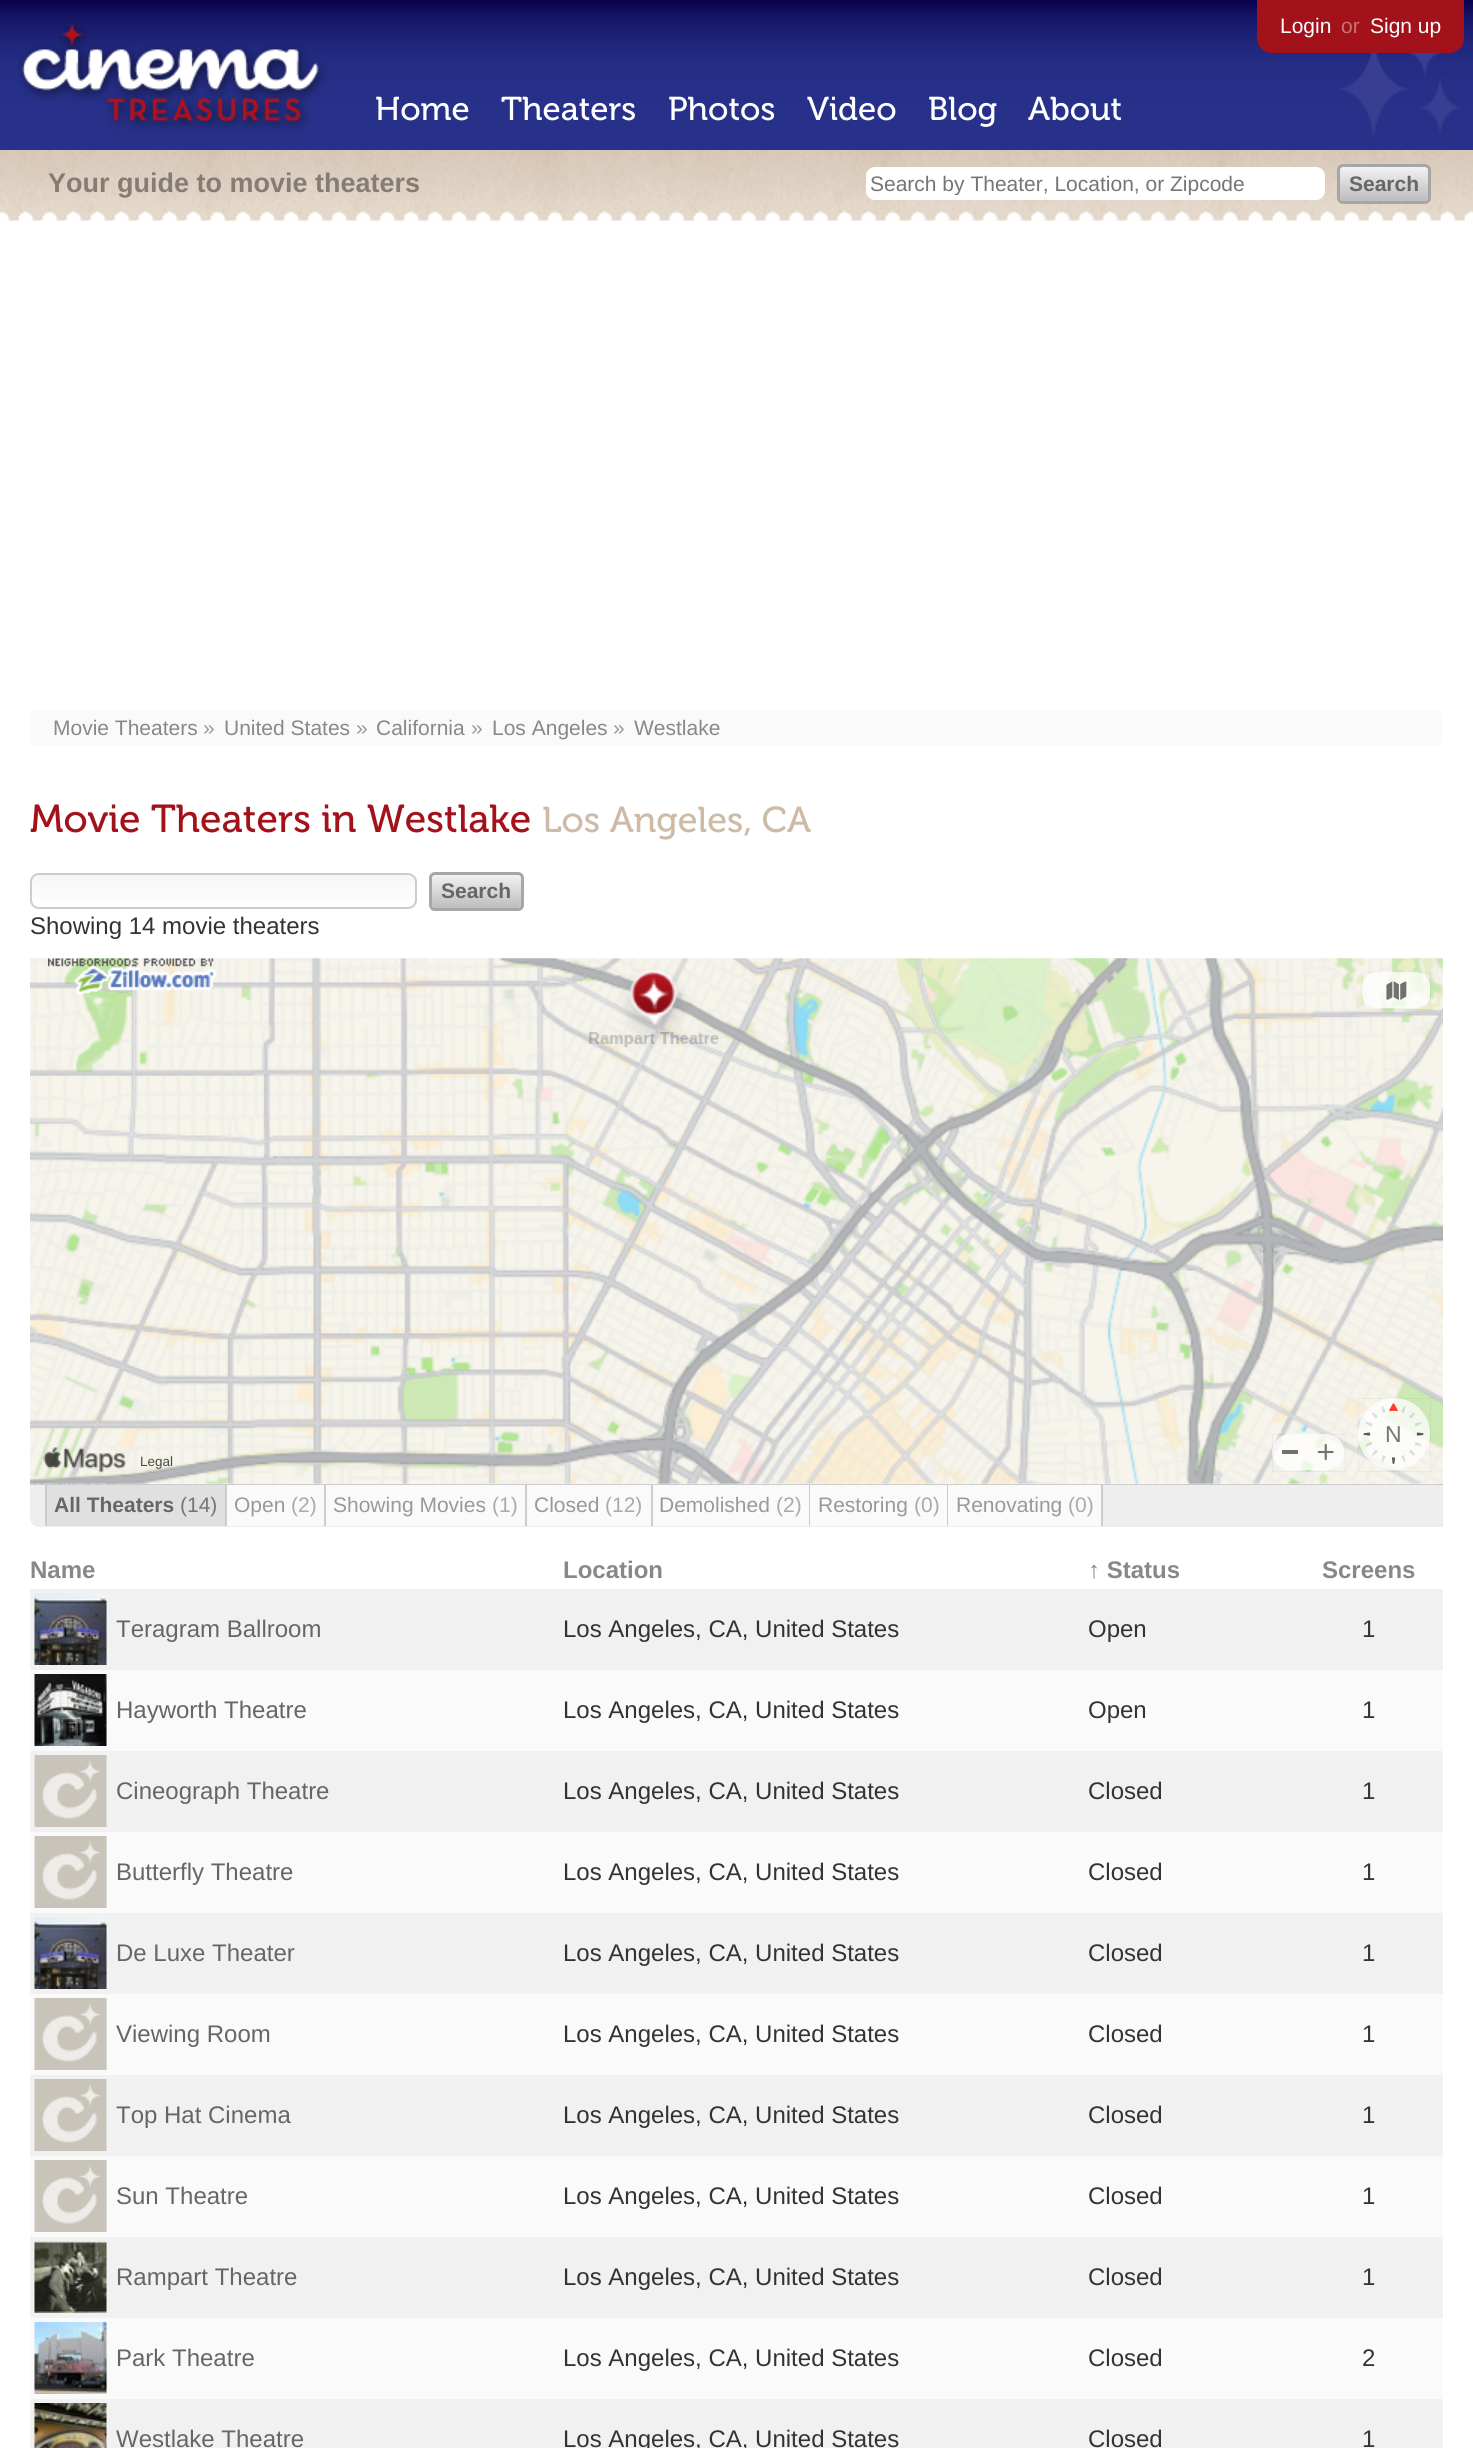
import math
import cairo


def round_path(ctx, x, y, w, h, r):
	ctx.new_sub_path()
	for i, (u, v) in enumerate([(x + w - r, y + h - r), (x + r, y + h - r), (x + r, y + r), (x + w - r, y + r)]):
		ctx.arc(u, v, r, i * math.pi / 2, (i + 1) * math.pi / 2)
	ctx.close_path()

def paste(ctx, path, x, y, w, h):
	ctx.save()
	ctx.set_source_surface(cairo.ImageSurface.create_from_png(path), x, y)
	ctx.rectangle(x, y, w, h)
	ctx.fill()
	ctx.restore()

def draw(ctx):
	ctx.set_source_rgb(1, 1, 1)
	ctx.paint()
	paste(ctx, 'media/1.png', 0, 0, 1473, 150)
	paste(ctx, 'media/2.png', 18, 22, 309, 110)
	ctx.select_font_face('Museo')
	ctx.set_font_size(33)
	ctx.set_source_rgb(1, 1, 1)
	for x, y, s in [
		(375, 120, 'Home'),
		(501, 120, 'Theaters'),
		(668, 120, 'Photos'),
		(807, 120, 'Video'),
		(928, 120, 'Blog'),
		(1028, 120, 'About'),
	]:
		ctx.move_to(x, y)
		ctx.show_text(s)
	ctx.set_source_rgb(0.639, 0.071, 0.106)
	ctx.new_path()
	ctx.move_to(1257, 0)
	ctx.line_to(1464, 0)
	ctx.line_to(1464, 38)
	ctx.curve_to(1464, 46.5, 1457.5, 53, 1449, 53)
	ctx.line_to(1272, 53)
	ctx.curve_to(1263.5, 53, 1257, 46.5, 1257, 38)
	ctx.close_path()
	ctx.fill()
	ctx.select_font_face('Liberation Sans')
	ctx.set_font_size(21)
	ctx.set_source_rgb(1, 1, 1)
	ctx.move_to(1280, 33)
	ctx.show_text('Login')
	ctx.set_source_rgb(0.784, 0.443, 0.463)
	ctx.move_to(1341, 33)
	ctx.show_text('or')
	ctx.set_source_rgb(1, 1, 1)
	ctx.move_to(1370, 33)
	ctx.show_text('Sign up')
	paste(ctx, 'media/3.png', 1339, 53, 121, 86)
	paste(ctx, 'media/4.png', 0, 150, 1473, 72)
	ctx.select_font_face('Liberation Sans', cairo.FONT_SLANT_NORMAL, cairo.FONT_WEIGHT_BOLD)
	ctx.set_font_size(27)
	ctx.set_source_rgb(0.522, 0.49, 0.455)
	ctx.move_to(48, 192)
	ctx.show_text('Your guide to movie theaters')
	ctx.set_source_rgb(1, 1, 1)
	round_path(ctx, 866, 167, 459, 33, 9)
	ctx.fill()
	ctx.save()
	ctx.rectangle(870, 171, 450, 24)
	ctx.clip()
	ctx.select_font_face('Liberation Sans')
	ctx.set_font_size(21)
	ctx.set_source_rgb(0.459, 0.459, 0.459)
	ctx.move_to(870, 191)
	ctx.show_text('Search by Theater, Location, or Zipcode')
	ctx.restore()
	gradient = cairo.LinearGradient(1384, 167, 1384, 201)
	gradient.add_color_stop_rgba(0, 0.949, 0.949, 0.949, 1)
	gradient.add_color_stop_rgba(1, 0.741, 0.741, 0.741, 1)
	ctx.set_source(gradient)
	round_path(ctx, 1340, 167, 88, 34, 3)
	ctx.fill()
	round_path(ctx, 1338.5, 165.5, 91, 37, 4.5)
	ctx.set_source_rgb(0.651, 0.651, 0.651)
	ctx.set_line_width(3)
	ctx.stroke()
	ctx.set_font_size(21)
	ctx.set_source_rgb(0.4, 0.4, 0.4)
	ctx.move_to(1349, 191)
	ctx.show_text('Search')
	ctx.set_source_rgb(0.98, 0.98, 0.98)
	round_path(ctx, 30, 710, 1413, 36, 9)
	ctx.fill()
	ctx.select_font_face('Liberation Sans')
	ctx.set_source_rgb(0.533, 0.533, 0.533)
	ctx.move_to(53, 735)
	ctx.show_text('Movie Theaters')
	ctx.set_source_rgb(0.6, 0.6, 0.6)
	ctx.move_to(203, 735)
	ctx.show_text('»')
	ctx.set_source_rgb(0.533, 0.533, 0.533)
	ctx.move_to(224, 735)
	ctx.show_text('United States')
	ctx.set_source_rgb(0.6, 0.6, 0.6)
	ctx.move_to(356, 735)
	ctx.show_text('»')
	ctx.set_source_rgb(0.533, 0.533, 0.533)
	ctx.move_to(376, 735)
	ctx.show_text('California')
	ctx.set_source_rgb(0.6, 0.6, 0.6)
	ctx.move_to(471, 735)
	ctx.show_text('»')
	ctx.set_source_rgb(0.533, 0.533, 0.533)
	ctx.move_to(492, 735)
	ctx.show_text('Los Angeles')
	ctx.set_source_rgb(0.6, 0.6, 0.6)
	ctx.move_to(613, 735)
	ctx.show_text('»')
	ctx.set_source_rgb(0.533, 0.533, 0.533)
	ctx.move_to(634, 735)
	ctx.show_text('Westlake')
	ctx.select_font_face('Museo')
	ctx.set_font_size(39)
	ctx.set_source_rgb(0.639, 0.071, 0.106)
	ctx.move_to(30, 832)
	ctx.show_text('Movie Theaters in Westlake')
	ctx.set_font_size(36)
	ctx.set_source_rgb(0.804, 0.733, 0.659)
	ctx.move_to(542, 832)
	ctx.show_text('Los Angeles, CA')
	ctx.save()
	round_path(ctx, 30, 873, 387, 36, 9)
	ctx.clip()
	gradient = cairo.LinearGradient(224, 875, 224, 908)
	gradient.add_color_stop_rgba(0, 0.965, 0.965, 0.965, 1)
	gradient.add_color_stop_rgba(1, 1, 1, 1, 1)
	ctx.set_source(gradient)
	ctx.rectangle(30, 875, 387, 33)
	ctx.fill()
	ctx.restore()
	round_path(ctx, 31, 874, 385, 34, 8)
	ctx.set_source_rgb(0.8, 0.8, 0.8)
	ctx.set_line_width(2)
	ctx.stroke()
	gradient = cairo.LinearGradient(476, 875, 476, 908)
	gradient.add_color_stop_rgba(0, 0.949, 0.949, 0.949, 1)
	gradient.add_color_stop_rgba(1, 0.741, 0.741, 0.741, 1)
	ctx.set_source(gradient)
	round_path(ctx, 432, 875, 89, 33, 3)
	ctx.fill()
	round_path(ctx, 430.5, 873.5, 92, 36, 4.5)
	ctx.set_source_rgb(0.651, 0.651, 0.651)
	ctx.set_line_width(3)
	ctx.stroke()
	ctx.select_font_face('Liberation Sans', cairo.FONT_SLANT_NORMAL, cairo.FONT_WEIGHT_BOLD)
	ctx.set_font_size(21)
	ctx.set_source_rgb(0.4, 0.4, 0.4)
	ctx.move_to(441, 898)
	ctx.show_text('Search')
	ctx.select_font_face('Liberation Sans')
	ctx.set_font_size(24)
	ctx.set_source_rgb(0.2, 0.2, 0.2)
	ctx.move_to(30, 934)
	ctx.show_text('Showing 14 movie theaters')
	paste(ctx, 'media/6.png', 30, 958, 1413, 526)
	paste(ctx, 'media/7.png', 30, 958, 1413, 526)
	paste(ctx, 'media/5.png', 48, 958, 168, 37)
	ctx.rectangle(1362.4, 972.4, 68.2, 37.2)
	ctx.set_source_rgba(0, 0, 0, 0.05)
	ctx.set_line_width(0.8)
	ctx.stroke()
	ctx.set_source_rgba(1, 1, 1, 0.75)
	round_path(ctx, 1362, 972, 68, 36, 14)
	ctx.fill()
	paste(ctx, 'media/8.png', 1386, 981, 21, 19)
	ctx.rectangle(1272.4, 1434.4, 73.2, 37.2)
	ctx.set_source_rgba(0, 0, 0, 0.05)
	ctx.stroke()
	ctx.set_source_rgba(1, 1, 1, 0.75)
	round_path(ctx, 1272, 1434, 72, 36, 18)
	ctx.fill()
	ctx.set_source_rgb(0.447, 0.443, 0.439)
	ctx.rectangle(1282, 1450, 16, 4)
	ctx.fill()
	paste(ctx, 'media/9.png', 1317, 1443, 17, 18)
	ctx.rectangle(1358.4, 1398.4, 72.2, 73.2)
	ctx.set_source_rgba(0, 0, 0, 0.05)
	ctx.stroke()
	ctx.set_source_rgba(1, 1, 1, 0.75)
	ctx.arc(1394, 1434, 36, 0, 2 * math.pi)
	ctx.fill()
	paste(ctx, 'media/10.png', 1363, 1403, 61, 61)
	ctx.set_font_size(23)
	ctx.set_source_rgb(0.459, 0.459, 0.459)
	ctx.move_to(1385, 1442)
	ctx.show_text('N')
	paste(ctx, 'media/11.png', 43, 1447, 84, 26)
	ctx.set_font_size(13.5)
	ctx.set_source_rgb(0.286, 0.286, 0.275)
	ctx.move_to(140, 1466)
	ctx.show_text('Legal')
	ctx.set_source_rgb(0.933, 0.933, 0.933)
	ctx.new_path()
	ctx.move_to(30, 1484)
	ctx.line_to(1443, 1484)
	ctx.line_to(1443, 1527)
	ctx.line_to(39, 1527)
	ctx.curve_to(34, 1527, 30, 1523, 30, 1518)
	ctx.close_path()
	ctx.fill()
	ctx.set_source_rgb(0.8, 0.8, 0.8)
	ctx.rectangle(30, 1484, 1413, 1)
	ctx.fill()
	ctx.save()
	ctx.rectangle(30, 258, 1413, 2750)
	ctx.clip()
	ctx.set_source_rgb(0.933, 0.933, 0.933)
	ctx.new_path()
	ctx.move_to(39, 1527)
	ctx.line_to(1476, 1527)
	ctx.curve_to(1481, 1527, 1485, 1523, 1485, 1518)
	ctx.curve_to(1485, 1522, 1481, 1526, 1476, 1526)
	ctx.line_to(39, 1526)
	ctx.curve_to(34, 1526, 30, 1522, 30, 1518)
	ctx.curve_to(30, 1523, 34, 1527, 39, 1527)
	ctx.close_path()
	ctx.fill()
	ctx.restore()
	ctx.set_source_rgb(0.878, 0.878, 0.878)
	ctx.rectangle(47, 1485, 178, 41)
	ctx.fill()
	ctx.set_source_rgb(0.8, 0.8, 0.8)
	ctx.rectangle(225, 1485, 2, 41)
	ctx.rectangle(45, 1485, 2, 41)
	ctx.fill()
	ctx.select_font_face('Liberation Sans', cairo.FONT_SLANT_NORMAL, cairo.FONT_WEIGHT_BOLD)
	ctx.set_font_size(21)
	ctx.set_source_rgb(0.4, 0.4, 0.4)
	ctx.move_to(54, 1512)
	ctx.show_text('All Theaters')
	ctx.select_font_face('Liberation Sans')
	ctx.set_source_rgb(0.459, 0.459, 0.459)
	ctx.move_to(180, 1512)
	ctx.show_text('(14)')
	ctx.set_source_rgb(0.98, 0.98, 0.98)
	ctx.rectangle(227, 1485, 97, 41)
	ctx.fill()
	ctx.set_source_rgb(0.8, 0.8, 0.8)
	ctx.rectangle(324, 1485, 2, 41)
	ctx.fill()
	ctx.set_source_rgb(0.6, 0.6, 0.6)
	ctx.move_to(234, 1512)
	ctx.show_text('Open')
	ctx.set_source_rgb(0.667, 0.667, 0.667)
	ctx.move_to(291, 1512)
	ctx.show_text('(2)')
	ctx.set_source_rgb(0.98, 0.98, 0.98)
	ctx.rectangle(326, 1485, 199, 41)
	ctx.fill()
	ctx.set_source_rgb(0.8, 0.8, 0.8)
	ctx.rectangle(525, 1485, 2, 41)
	ctx.fill()
	ctx.set_source_rgb(0.6, 0.6, 0.6)
	ctx.move_to(333, 1512)
	ctx.show_text('Showing Movies')
	ctx.set_source_rgb(0.667, 0.667, 0.667)
	ctx.move_to(492, 1512)
	ctx.show_text('(1)')
	ctx.set_source_rgb(0.98, 0.98, 0.98)
	ctx.rectangle(527, 1485, 124, 41)
	ctx.fill()
	ctx.set_source_rgb(0.8, 0.8, 0.8)
	ctx.rectangle(651, 1485, 2, 41)
	ctx.fill()
	ctx.set_source_rgb(0.6, 0.6, 0.6)
	ctx.move_to(534, 1512)
	ctx.show_text('Closed')
	ctx.set_source_rgb(0.667, 0.667, 0.667)
	ctx.move_to(605, 1512)
	ctx.show_text('(12)')
	ctx.set_source_rgb(0.98, 0.98, 0.98)
	ctx.rectangle(653, 1485, 156, 41)
	ctx.fill()
	ctx.set_source_rgb(0.8, 0.8, 0.8)
	ctx.rectangle(809, 1485, 1, 41)
	ctx.fill()
	ctx.set_source_rgb(0.6, 0.6, 0.6)
	ctx.move_to(659, 1512)
	ctx.show_text('Demolished')
	ctx.set_source_rgb(0.667, 0.667, 0.667)
	ctx.move_to(776, 1512)
	ctx.show_text('(2)')
	ctx.set_source_rgb(0.98, 0.98, 0.98)
	ctx.rectangle(810, 1485, 137, 41)
	ctx.fill()
	ctx.set_source_rgb(0.8, 0.8, 0.8)
	ctx.rectangle(947, 1485, 1, 41)
	ctx.fill()
	ctx.set_source_rgb(0.6, 0.6, 0.6)
	ctx.move_to(818, 1512)
	ctx.show_text('Restoring')
	ctx.set_source_rgb(0.667, 0.667, 0.667)
	ctx.move_to(914, 1512)
	ctx.show_text('(0)')
	ctx.set_source_rgb(0.98, 0.98, 0.98)
	ctx.rectangle(948, 1485, 153, 41)
	ctx.fill()
	ctx.set_source_rgb(0.8, 0.8, 0.8)
	ctx.rectangle(1101, 1485, 2, 41)
	ctx.fill()
	ctx.set_source_rgb(0.6, 0.6, 0.6)
	ctx.move_to(956, 1512)
	ctx.show_text('Renovating')
	ctx.set_source_rgb(0.667, 0.667, 0.667)
	ctx.move_to(1068, 1512)
	ctx.show_text('(0)')
	ctx.select_font_face('Liberation Sans', cairo.FONT_SLANT_NORMAL, cairo.FONT_WEIGHT_BOLD)
	ctx.set_font_size(24)
	ctx.set_source_rgb(0.533, 0.533, 0.533)
	for x, y, s in [
		(30, 1578, 'Name'),
		(563, 1578, 'Location'),
		(1088, 1578, '↑ Status'),
		(1322, 1578, 'Screens'),
	]:
		ctx.move_to(x, y)
		ctx.show_text(s)
	ctx.set_source_rgb(0.945, 0.945, 0.945)
	ctx.rectangle(30, 1589, 1413, 81)
	ctx.fill()
	ctx.set_source_rgb(0.933, 0.933, 0.933)
	ctx.rectangle(106, 1593, 1, 72)
	ctx.fill()
	paste(ctx, 'media/12.png', 34, 1593, 73, 72)
	ctx.select_font_face('Liberation Sans')
	ctx.set_source_rgb(0.4, 0.4, 0.4)
	ctx.move_to(116, 1637)
	ctx.show_text('Teragram Ballroom')
	ctx.set_source_rgb(0.2, 0.2, 0.2)
	for x, y, s in [
		(563, 1637, 'Los Angeles, CA, United States'),
		(1088, 1637, 'Open'),
		(1362, 1637, '1'),
	]:
		ctx.move_to(x, y)
		ctx.show_text(s)
	ctx.set_source_rgb(0.98, 0.98, 0.98)
	ctx.rectangle(30, 1670, 1413, 81)
	ctx.fill()
	ctx.set_source_rgb(0.933, 0.933, 0.933)
	ctx.rectangle(106, 1674, 1, 72)
	ctx.fill()
	paste(ctx, 'media/13.png', 34, 1674, 73, 72)
	ctx.set_source_rgb(0.4, 0.4, 0.4)
	ctx.move_to(116, 1718)
	ctx.show_text('Hayworth Theatre')
	ctx.set_source_rgb(0.2, 0.2, 0.2)
	for x, y, s in [
		(563, 1718, 'Los Angeles, CA, United States'),
		(1088, 1718, 'Open'),
		(1362, 1718, '1'),
	]:
		ctx.move_to(x, y)
		ctx.show_text(s)
	ctx.set_source_rgb(0.945, 0.945, 0.945)
	ctx.rectangle(30, 1751, 1413, 81)
	ctx.fill()
	ctx.set_source_rgb(0.933, 0.933, 0.933)
	ctx.rectangle(35, 1755, 72, 72)
	ctx.fill()
	paste(ctx, 'media/14.png', 34, 1755, 73, 72)
	ctx.set_source_rgb(0.4, 0.4, 0.4)
	ctx.move_to(116, 1799)
	ctx.show_text('Cineograph Theatre')
	ctx.set_source_rgb(0.2, 0.2, 0.2)
	for x, y, s in [
		(563, 1799, 'Los Angeles, CA, United States'),
		(1088, 1799, 'Closed'),
		(1362, 1799, '1'),
	]:
		ctx.move_to(x, y)
		ctx.show_text(s)
	ctx.set_source_rgb(0.98, 0.98, 0.98)
	ctx.rectangle(30, 1832, 1413, 81)
	ctx.fill()
	ctx.set_source_rgb(0.933, 0.933, 0.933)
	ctx.rectangle(35, 1836, 72, 72)
	ctx.fill()
	paste(ctx, 'media/15.png', 34, 1836, 73, 72)
	ctx.set_source_rgb(0.4, 0.4, 0.4)
	ctx.move_to(116, 1880)
	ctx.show_text('Butterfly Theatre')
	ctx.set_source_rgb(0.2, 0.2, 0.2)
	for x, y, s in [
		(563, 1880, 'Los Angeles, CA, United States'),
		(1088, 1880, 'Closed'),
		(1362, 1880, '1'),
	]:
		ctx.move_to(x, y)
		ctx.show_text(s)
	ctx.set_source_rgb(0.945, 0.945, 0.945)
	ctx.rectangle(30, 1913, 1413, 81)
	ctx.fill()
	ctx.set_source_rgb(0.933, 0.933, 0.933)
	ctx.rectangle(106, 1917, 1, 72)
	ctx.fill()
	paste(ctx, 'media/12.png', 34, 1917, 73, 72)
	ctx.set_source_rgb(0.4, 0.4, 0.4)
	ctx.move_to(116, 1961)
	ctx.show_text('De Luxe Theater')
	ctx.set_source_rgb(0.2, 0.2, 0.2)
	for x, y, s in [
		(563, 1961, 'Los Angeles, CA, United States'),
		(1088, 1961, 'Closed'),
		(1362, 1961, '1'),
	]:
		ctx.move_to(x, y)
		ctx.show_text(s)
	ctx.set_source_rgb(0.98, 0.98, 0.98)
	ctx.rectangle(30, 1994, 1413, 81)
	ctx.fill()
	ctx.set_source_rgb(0.933, 0.933, 0.933)
	ctx.rectangle(35, 1998, 72, 72)
	ctx.fill()
	paste(ctx, 'media/15.png', 34, 1998, 73, 72)
	ctx.set_source_rgb(0.4, 0.4, 0.4)
	ctx.move_to(116, 2042)
	ctx.show_text('Viewing Room')
	ctx.set_source_rgb(0.2, 0.2, 0.2)
	for x, y, s in [
		(563, 2042, 'Los Angeles, CA, United States'),
		(1088, 2042, 'Closed'),
		(1362, 2042, '1'),
	]:
		ctx.move_to(x, y)
		ctx.show_text(s)
	ctx.set_source_rgb(0.945, 0.945, 0.945)
	ctx.rectangle(30, 2075, 1413, 81)
	ctx.fill()
	ctx.set_source_rgb(0.933, 0.933, 0.933)
	ctx.rectangle(35, 2079, 72, 72)
	ctx.fill()
	paste(ctx, 'media/14.png', 34, 2079, 73, 72)
	ctx.set_source_rgb(0.4, 0.4, 0.4)
	ctx.move_to(116, 2123)
	ctx.show_text('Top Hat Cinema')
	ctx.set_source_rgb(0.2, 0.2, 0.2)
	for x, y, s in [
		(563, 2123, 'Los Angeles, CA, United States'),
		(1088, 2123, 'Closed'),
		(1362, 2123, '1'),
	]:
		ctx.move_to(x, y)
		ctx.show_text(s)
	ctx.set_source_rgb(0.98, 0.98, 0.98)
	ctx.rectangle(30, 2156, 1413, 81)
	ctx.fill()
	ctx.set_source_rgb(0.933, 0.933, 0.933)
	ctx.rectangle(35, 2160, 72, 72)
	ctx.fill()
	paste(ctx, 'media/15.png', 34, 2160, 73, 72)
	ctx.set_source_rgb(0.4, 0.4, 0.4)
	ctx.move_to(116, 2204)
	ctx.show_text('Sun Theatre')
	ctx.set_source_rgb(0.2, 0.2, 0.2)
	for x, y, s in [
		(563, 2204, 'Los Angeles, CA, United States'),
		(1088, 2204, 'Closed'),
		(1362, 2204, '1'),
	]:
		ctx.move_to(x, y)
		ctx.show_text(s)
	ctx.set_source_rgb(0.945, 0.945, 0.945)
	ctx.rectangle(30, 2237, 1413, 81)
	ctx.fill()
	ctx.set_source_rgb(0.933, 0.933, 0.933)
	ctx.rectangle(106, 2241, 1, 72)
	ctx.fill()
	paste(ctx, 'media/16.png', 34, 2241, 73, 72)
	ctx.set_source_rgb(0.4, 0.4, 0.4)
	ctx.move_to(116, 2285)
	ctx.show_text('Rampart Theatre')
	ctx.set_source_rgb(0.2, 0.2, 0.2)
	for x, y, s in [
		(563, 2285, 'Los Angeles, CA, United States'),
		(1088, 2285, 'Closed'),
		(1362, 2285, '1'),
	]:
		ctx.move_to(x, y)
		ctx.show_text(s)
	ctx.set_source_rgb(0.98, 0.98, 0.98)
	ctx.rectangle(30, 2318, 1413, 81)
	ctx.fill()
	ctx.set_source_rgb(0.933, 0.933, 0.933)
	ctx.rectangle(106, 2322, 1, 72)
	ctx.fill()
	paste(ctx, 'media/17.png', 34, 2322, 73, 72)
	ctx.set_source_rgb(0.4, 0.4, 0.4)
	ctx.move_to(116, 2366)
	ctx.show_text('Park Theatre')
	ctx.set_source_rgb(0.2, 0.2, 0.2)
	for x, y, s in [
		(563, 2366, 'Los Angeles, CA, United States'),
		(1088, 2366, 'Closed'),
		(1362, 2366, '2'),
	]:
		ctx.move_to(x, y)
		ctx.show_text(s)
	ctx.set_source_rgb(0.945, 0.945, 0.945)
	ctx.rectangle(30, 2399, 1413, 49)
	ctx.fill()
	ctx.set_source_rgb(0.933, 0.933, 0.933)
	ctx.rectangle(106, 2403, 1, 45)
	ctx.fill()
	paste(ctx, 'media/18.png', 34, 2403, 73, 45)
	ctx.set_source_rgb(0.4, 0.4, 0.4)
	ctx.move_to(116, 2447)
	ctx.show_text('Westlake Theatre')
	ctx.set_source_rgb(0.2, 0.2, 0.2)
	for x, y, s in [
		(563, 2447, 'Los Angeles, CA, United States'),
		(1088, 2447, 'Closed'),
		(1362, 2447, '1'),
	]:
		ctx.move_to(x, y)
		ctx.show_text(s)


surface = cairo.ImageSurface(cairo.FORMAT_RGB24, 1473, 2448)
ctx = cairo.Context(surface)
options = cairo.FontOptions()
options.set_hint_metrics(cairo.HINT_METRICS_OFF)
options.set_hint_style(cairo.HINT_STYLE_NONE)
ctx.set_font_options(options)
ctx.set_miter_limit(4)
draw(ctx)
surface.write_to_png('image.png')
